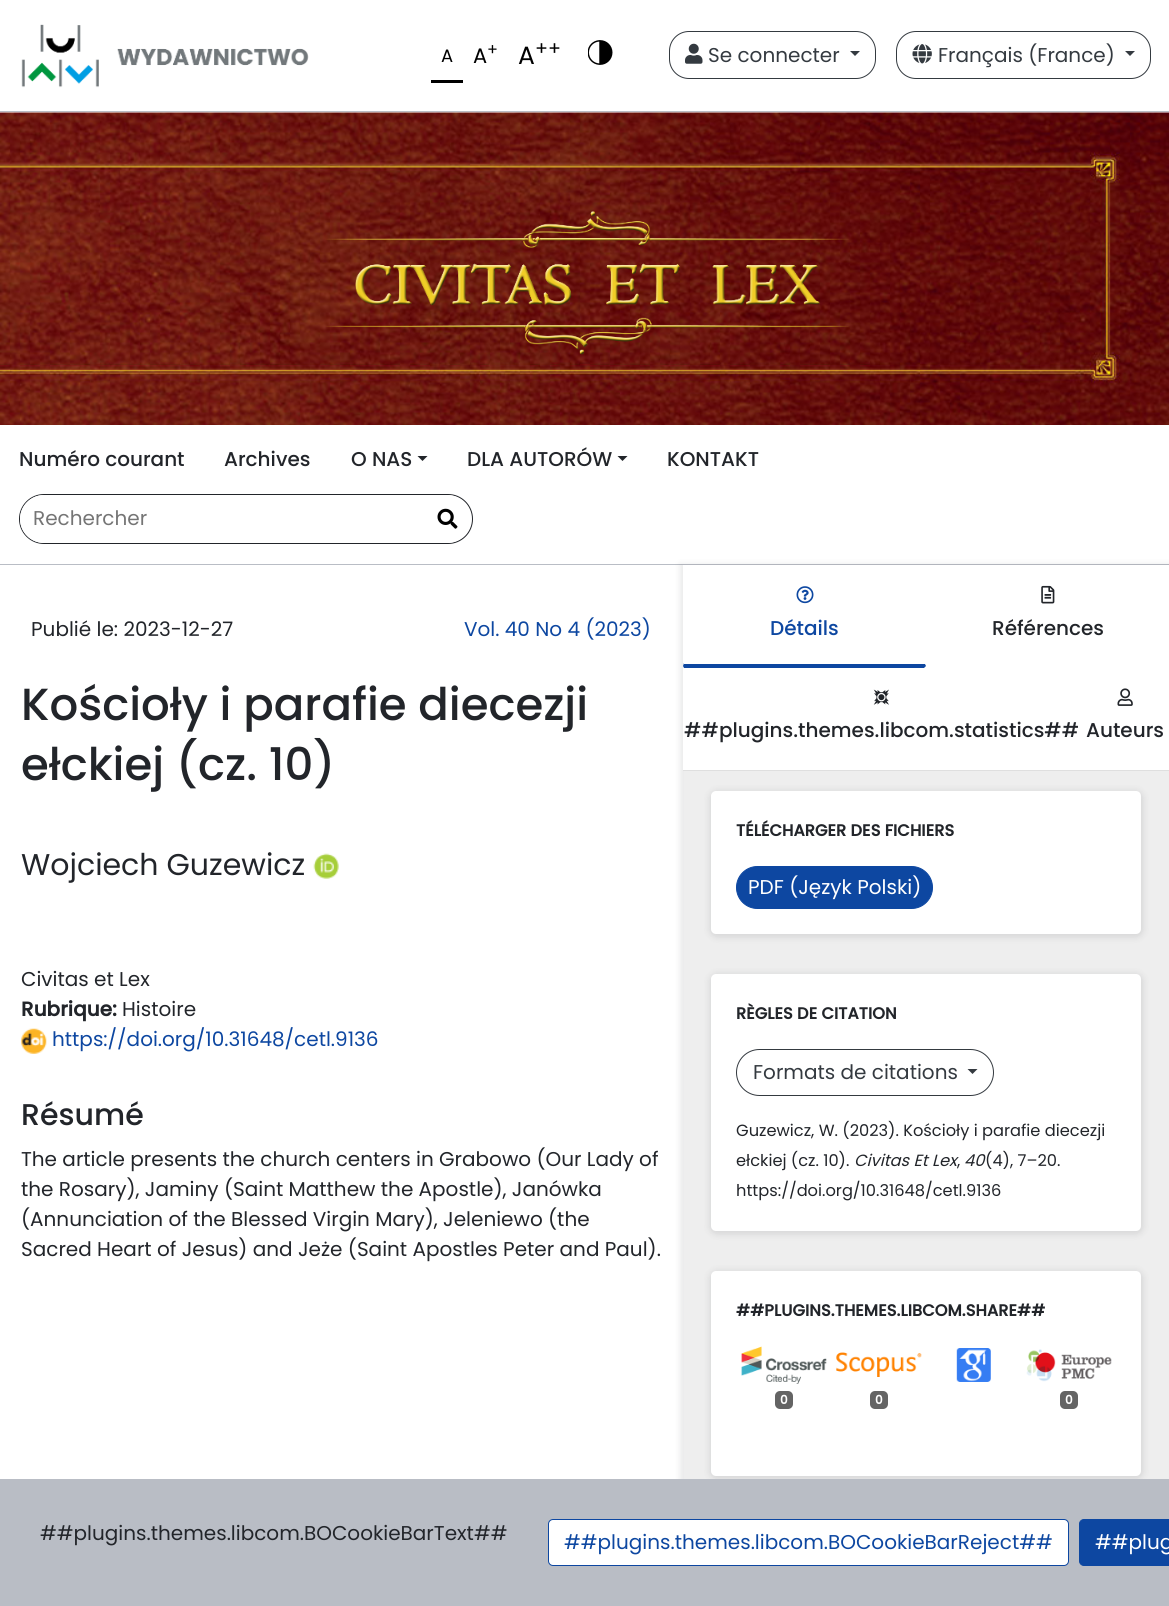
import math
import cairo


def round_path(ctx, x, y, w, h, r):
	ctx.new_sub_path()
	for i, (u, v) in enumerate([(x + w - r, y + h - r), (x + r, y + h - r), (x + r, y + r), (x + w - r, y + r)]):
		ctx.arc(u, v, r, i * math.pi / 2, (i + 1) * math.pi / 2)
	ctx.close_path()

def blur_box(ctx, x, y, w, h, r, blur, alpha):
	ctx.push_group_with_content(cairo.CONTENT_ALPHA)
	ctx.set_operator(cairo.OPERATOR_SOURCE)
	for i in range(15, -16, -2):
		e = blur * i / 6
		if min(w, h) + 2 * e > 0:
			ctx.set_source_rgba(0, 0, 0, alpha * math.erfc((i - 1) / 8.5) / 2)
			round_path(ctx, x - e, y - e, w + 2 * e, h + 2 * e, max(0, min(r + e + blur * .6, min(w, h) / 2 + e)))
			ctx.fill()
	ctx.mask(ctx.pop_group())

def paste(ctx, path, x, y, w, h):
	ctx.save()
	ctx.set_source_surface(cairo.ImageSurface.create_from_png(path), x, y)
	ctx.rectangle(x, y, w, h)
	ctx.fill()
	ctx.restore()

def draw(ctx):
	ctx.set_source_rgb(1, 1, 1)
	ctx.paint()
	ctx.set_source_rgb(0.725, 0.741, 0.773)
	ctx.rectangle(0, 111, 1169, 1)
	ctx.fill()
	paste(ctx, 'media/1.png', 21, 24, 288, 64)
	ctx.set_source_rgb(0, 0, 0)
	ctx.rectangle(431, 80, 32, 3)
	ctx.fill()
	ctx.select_font_face('Poppins')
	ctx.set_font_size(18)
	ctx.move_to(441, 62)
	ctx.show_text('A')
	ctx.set_font_size(21)
	ctx.move_to(473, 63)
	ctx.show_text('A')
	ctx.set_font_size(16)
	ctx.move_to(487, 55)
	ctx.show_text('+')
	ctx.set_font_size(25)
	ctx.move_to(518, 64)
	ctx.show_text('A')
	ctx.set_font_size(19)
	ctx.move_to(535, 55)
	ctx.show_text('++')
	paste(ctx, 'media/2.png', 588, 40, 25, 25)
	round_path(ctx, 669.5, 31.5, 206, 47, 19.5)
	ctx.set_source_rgb(0.204, 0.227, 0.251)
	ctx.set_line_width(1)
	ctx.stroke()
	paste(ctx, 'media/3.png', 685, 43, 18, 21)
	ctx.set_font_size(20)
	ctx.move_to(708, 62)
	ctx.show_text('Se connecter')
	ctx.new_path()
	ctx.move_to(850, 51)
	ctx.line_to(860, 51)
	ctx.line_to(855, 56)
	ctx.close_path()
	ctx.fill()
	round_path(ctx, 896.5, 31.5, 254, 47, 19.5)
	ctx.stroke()
	paste(ctx, 'media/4.png', 912, 44, 20, 20)
	ctx.move_to(938, 62)
	ctx.show_text('Français (France)')
	ctx.new_path()
	ctx.move_to(1125, 51)
	ctx.line_to(1135, 51)
	ctx.line_to(1130, 56)
	ctx.close_path()
	ctx.fill()
	paste(ctx, 'media/5.png', 0, 112, 1169, 313)
	paste(ctx, 'media/6.png', 325, 211, 524, 144)
	ctx.set_source_rgb(0.725, 0.741, 0.773)
	ctx.rectangle(0, 564, 1169, 1)
	ctx.fill()
	ctx.select_font_face('Poppins Medium')
	ctx.set_source_rgb(0.133, 0.145, 0.165)
	for x, y, s in [
		(19, 466, 'Numéro courant'),
		(224, 466, 'Archives'),
		(351, 466, 'O NAS'),
	]:
		ctx.move_to(x, y)
		ctx.show_text(s)
	ctx.new_path()
	ctx.move_to(417.5, 456)
	ctx.line_to(427.5, 456)
	ctx.line_to(422.5, 461)
	ctx.close_path()
	ctx.fill()
	ctx.move_to(467, 466)
	ctx.show_text('DLA AUTORÓW')
	ctx.new_path()
	ctx.move_to(617.5, 456)
	ctx.line_to(627.5, 456)
	ctx.line_to(622.5, 461)
	ctx.close_path()
	ctx.fill()
	ctx.move_to(667, 466)
	ctx.show_text('KONTAKT')
	round_path(ctx, 19.5, 494.5, 453, 49, 24.5)
	ctx.stroke()
	ctx.set_source_rgb(1, 1, 1)
	round_path(ctx, 20, 495, 451, 48, 24)
	ctx.fill()
	ctx.select_font_face('Poppins')
	ctx.set_source_rgb(0.459, 0.459, 0.459)
	ctx.move_to(33, 525)
	ctx.show_text('Rechercher')
	paste(ctx, 'media/7.png', 437, 508, 21, 21)
	ctx.set_source_rgb(0.133, 0.145, 0.165)
	ctx.move_to(31, 636)
	ctx.show_text('Publié le: 2023-12-27')
	ctx.set_source_rgb(0.051, 0.278, 0.631)
	ctx.move_to(464, 636)
	ctx.show_text('Vol. 40 No 4 (2023)')
	ctx.select_font_face('Poppins Medium')
	ctx.set_font_size(45)
	ctx.set_source_rgb(0.133, 0.145, 0.165)
	ctx.move_to(21, 720)
	ctx.show_text('Kościoły i parafie diecezji')
	ctx.move_to(21, 780)
	ctx.show_text('ełckiej (cz. 10)')
	ctx.select_font_face('Poppins')
	ctx.set_font_size(30)
	ctx.move_to(21, 875)
	ctx.show_text('Wojciech Guzewicz')
	paste(ctx, 'media/8.png', 313, 853, 26, 26)
	ctx.set_font_size(20)
	ctx.move_to(21, 986)
	ctx.show_text('Civitas et Lex')
	ctx.select_font_face('Poppins', cairo.FONT_SLANT_NORMAL, cairo.FONT_WEIGHT_BOLD)
	ctx.move_to(21, 1016)
	ctx.show_text('Rubrique:')
	ctx.select_font_face('Poppins')
	ctx.move_to(122, 1016)
	ctx.show_text('Histoire')
	paste(ctx, 'media/9.png', 21, 1028, 26, 26)
	ctx.set_source_rgb(0.051, 0.278, 0.631)
	ctx.move_to(52, 1046)
	ctx.show_text('https://doi.org/10.31648/cetl.9136')
	ctx.select_font_face('Poppins Medium')
	ctx.set_font_size(30)
	ctx.set_source_rgb(0.133, 0.145, 0.165)
	ctx.move_to(21, 1125)
	ctx.show_text('Résumé')
	ctx.select_font_face('Poppins')
	ctx.set_font_size(20)
	for x, y, s in [
		(21, 1166, 'The article presents the church centers in Grabowo (Our Lady of'),
		(21, 1196, 'the Rosary), Jaminy (Saint Matthew the Apostle), Janówka'),
		(21, 1226, '(Annunciation of the Blessed Virgin Mary), Jeleniewo (the'),
		(21, 1256, 'Sacred Heart of Jesus) and Jeże (Saint Apostles Peter and Paul).'),
	]:
		ctx.move_to(x, y)
		ctx.show_text(s)
	ctx.set_source_rgb(0.133, 0.145, 0.165)
	blur_box(ctx, 680, 564, 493, 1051, 0, 3, 0.1)
	ctx.set_source_rgb(0.933, 0.933, 0.933)
	ctx.rectangle(684, 771, 485, 708)
	ctx.fill()
	ctx.set_source_rgb(1, 1, 1)
	ctx.rectangle(683, 565, 486, 205)
	ctx.fill()
	ctx.set_source_rgb(0.875, 0.875, 0.875)
	ctx.rectangle(683, 770, 486, 1)
	ctx.fill()
	ctx.set_source_rgb(0.051, 0.278, 0.631)
	ctx.new_path()
	ctx.move_to(684, 668)
	ctx.line_to(683, 666)
	ctx.line_to(684, 663)
	ctx.line_to(684, 664)
	ctx.line_to(925, 664)
	ctx.line_to(926, 666)
	ctx.line_to(924, 668)
	ctx.close_path()
	ctx.fill()
	paste(ctx, 'media/10.png', 796, 586, 18, 18)
	ctx.select_font_face('Poppins Medium')
	ctx.move_to(770, 635)
	ctx.show_text('Détails')
	paste(ctx, 'media/11.png', 1041, 585, 14, 19)
	ctx.set_source_rgb(0.133, 0.145, 0.165)
	ctx.move_to(992, 635)
	ctx.show_text('Références')
	paste(ctx, 'media/12.png', 873, 689, 16, 16)
	ctx.move_to(684, 737)
	ctx.show_text('##plugins.themes.libcom.statistics##')
	paste(ctx, 'media/13.png', 1117, 688, 16, 18)
	ctx.move_to(1086, 737)
	ctx.show_text('Auteurs')
	ctx.set_source_rgb(0.133, 0.145, 0.165)
	blur_box(ctx, 709, 790, 435, 148, 8, 3, 0.1)
	ctx.set_source_rgb(1, 1, 1)
	round_path(ctx, 711, 791, 430, 143, 5)
	ctx.fill()
	ctx.select_font_face('Poppins', cairo.FONT_SLANT_NORMAL, cairo.FONT_WEIGHT_BOLD)
	ctx.set_font_size(16.25)
	ctx.set_source_rgb(0.133, 0.145, 0.165)
	ctx.move_to(736, 836)
	ctx.show_text('TÉLÉCHARGER DES FICHIERS')
	ctx.set_source_rgb(0.051, 0.278, 0.631)
	round_path(ctx, 736.5, 866.5, 196, 42, 21)
	ctx.fill_preserve()
	ctx.stroke()
	ctx.select_font_face('Poppins')
	ctx.set_font_size(20)
	ctx.set_source_rgb(1, 1, 1)
	ctx.move_to(748, 894)
	ctx.show_text('PDF (Język Polski)')
	ctx.set_source_rgb(0.133, 0.145, 0.165)
	blur_box(ctx, 709, 973, 435, 262, 8, 3, 0.1)
	ctx.set_source_rgb(1, 1, 1)
	round_path(ctx, 711, 974, 430, 257, 5)
	ctx.fill()
	ctx.select_font_face('Poppins', cairo.FONT_SLANT_NORMAL, cairo.FONT_WEIGHT_BOLD)
	ctx.set_font_size(16.25)
	ctx.set_source_rgb(0.133, 0.145, 0.165)
	ctx.move_to(736, 1019)
	ctx.show_text('RÈGLES DE CITATION')
	round_path(ctx, 736.5, 1049.5, 257, 46, 23)
	ctx.set_source_rgb(0.204, 0.227, 0.251)
	ctx.stroke()
	ctx.select_font_face('Poppins')
	ctx.set_font_size(20)
	ctx.move_to(753, 1079)
	ctx.show_text('Formats de citations')
	ctx.new_path()
	ctx.move_to(967.5, 1069)
	ctx.line_to(977.5, 1069)
	ctx.line_to(972.5, 1074)
	ctx.close_path()
	ctx.fill()
	ctx.set_font_size(16.25)
	ctx.set_source_rgb(0.133, 0.145, 0.165)
	ctx.move_to(736, 1136)
	ctx.show_text('Guzewicz, W. (2023). Kościoły i parafie diecezji')
	ctx.move_to(736, 1166)
	ctx.show_text('ełckiej (cz. 10).')
	ctx.select_font_face('Poppins', cairo.FONT_SLANT_ITALIC)
	ctx.move_to(854, 1166)
	ctx.show_text('Civitas Et Lex')
	ctx.move_to(964, 1166)
	ctx.show_text('40')
	ctx.select_font_face('Poppins')
	for x, y, s in [
		(985, 1166, '(4), 7–20.'),
		(957, 1166, ','),
		(736, 1196, 'https://doi.org/10.31648/cetl.9136'),
	]:
		ctx.move_to(x, y)
		ctx.show_text(s)
	ctx.set_source_rgb(0.133, 0.145, 0.165)
	blur_box(ctx, 709, 1270, 435, 210, 8, 3, 0.1)
	ctx.set_source_rgb(1, 1, 1)
	round_path(ctx, 711, 1271, 430, 205, 5)
	ctx.fill()
	ctx.select_font_face('Poppins', cairo.FONT_SLANT_NORMAL, cairo.FONT_WEIGHT_BOLD)
	ctx.set_source_rgb(0.133, 0.145, 0.165)
	ctx.move_to(736, 1316)
	ctx.show_text('##PLUGINS.THEMES.LIBCOM.SHARE##')
	paste(ctx, 'media/14.png', 956, 1348, 35, 34)
	paste(ctx, 'media/15.png', 741, 1346, 86, 38)
	ctx.set_source_rgb(0.392, 0.392, 0.392)
	round_path(ctx, 775, 1391, 18, 18, 5)
	ctx.fill()
	ctx.set_font_size(12)
	ctx.set_source_rgb(1, 1, 1)
	ctx.move_to(780, 1404)
	ctx.show_text('0')
	paste(ctx, 'media/16.png', 836, 1352, 86, 25)
	ctx.set_source_rgb(0.392, 0.392, 0.392)
	round_path(ctx, 870, 1391, 18, 18, 5)
	ctx.fill()
	ctx.set_source_rgb(1, 1, 1)
	ctx.move_to(875, 1404)
	ctx.show_text('0')
	paste(ctx, 'media/17.png', 1026, 1349, 86, 33)
	ctx.set_source_rgb(0.392, 0.392, 0.392)
	round_path(ctx, 1060, 1391, 18, 18, 5)
	ctx.fill()
	ctx.set_source_rgb(1, 1, 1)
	ctx.move_to(1065, 1404)
	ctx.show_text('0')
	ctx.set_source_rgb(0.725, 0.741, 0.773)
	ctx.rectangle(0, 1479, 1169, 127)
	ctx.fill()
	ctx.select_font_face('Poppins')
	ctx.set_font_size(20)
	ctx.set_source_rgb(0.133, 0.145, 0.165)
	ctx.move_to(40, 1540)
	ctx.show_text('##plugins.themes.libcom.BOCookieBarText##')
	ctx.set_source_rgb(1, 1, 1)
	round_path(ctx, 548.5, 1519.5, 520, 46, 4.5)
	ctx.fill_preserve()
	ctx.set_source_rgb(0.051, 0.278, 0.631)
	ctx.stroke()
	ctx.move_to(564, 1549)
	ctx.show_text('##plugins.themes.libcom.BOCookieBarReject##')
	round_path(ctx, 1079.5, 1519.5, 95, 46, 4.5)
	ctx.fill_preserve()
	ctx.stroke()
	ctx.set_source_rgb(1, 1, 1)
	ctx.move_to(1095, 1549)
	ctx.show_text('##plug')


surface = cairo.ImageSurface(cairo.FORMAT_RGB24, 1169, 1606)
ctx = cairo.Context(surface)
options = cairo.FontOptions()
options.set_hint_metrics(cairo.HINT_METRICS_OFF)
options.set_hint_style(cairo.HINT_STYLE_NONE)
ctx.set_font_options(options)
ctx.set_miter_limit(4)
draw(ctx)
surface.write_to_png('image.png')
